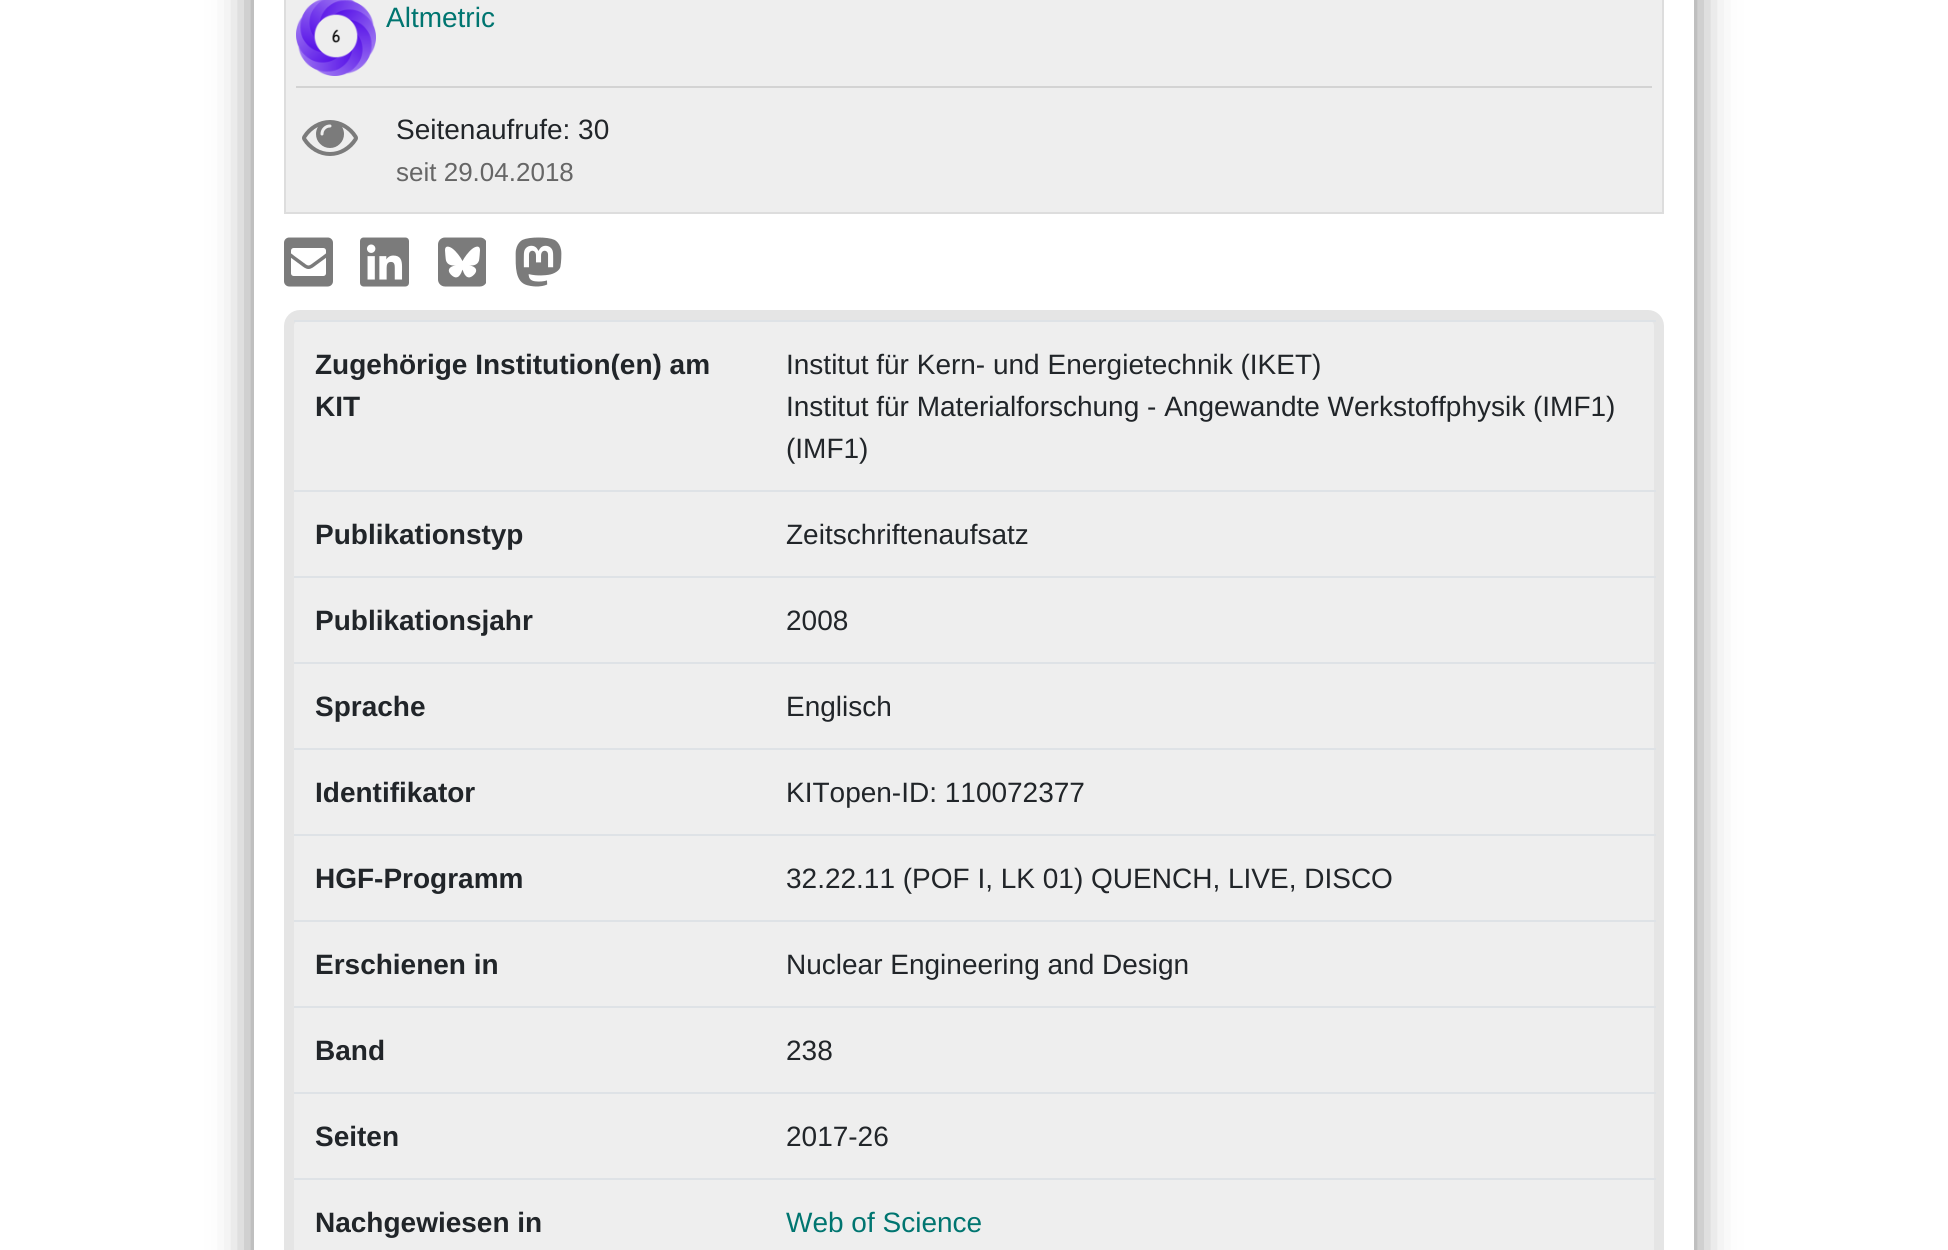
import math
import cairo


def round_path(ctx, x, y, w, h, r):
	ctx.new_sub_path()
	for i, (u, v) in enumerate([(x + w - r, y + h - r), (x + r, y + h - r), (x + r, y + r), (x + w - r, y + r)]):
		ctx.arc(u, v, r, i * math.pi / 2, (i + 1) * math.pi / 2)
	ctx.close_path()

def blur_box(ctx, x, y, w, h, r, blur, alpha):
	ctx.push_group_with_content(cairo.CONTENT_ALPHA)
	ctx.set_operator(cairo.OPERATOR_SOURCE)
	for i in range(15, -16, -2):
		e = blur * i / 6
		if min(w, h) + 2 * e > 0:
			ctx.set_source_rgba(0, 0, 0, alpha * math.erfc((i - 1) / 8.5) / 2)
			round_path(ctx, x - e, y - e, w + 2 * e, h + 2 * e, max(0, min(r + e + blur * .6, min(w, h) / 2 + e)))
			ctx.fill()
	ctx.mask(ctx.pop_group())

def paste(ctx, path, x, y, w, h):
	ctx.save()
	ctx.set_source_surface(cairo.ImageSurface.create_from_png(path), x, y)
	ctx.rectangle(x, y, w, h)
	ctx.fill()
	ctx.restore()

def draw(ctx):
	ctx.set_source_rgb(1, 1, 1)
	ctx.paint()
	ctx.save()
	ctx.set_fill_rule(cairo.FILL_RULE_EVEN_ODD)
	ctx.new_path()
	ctx.move_to(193, 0)
	ctx.line_to(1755, 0)
	ctx.line_to(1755, 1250)
	ctx.line_to(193, 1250)
	ctx.close_path()
	ctx.move_to(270, -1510)
	ctx.line_to(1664, -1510)
	ctx.curve_to(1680.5, -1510, 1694, -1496.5, 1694, -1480)
	ctx.line_to(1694, 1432)
	ctx.curve_to(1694, 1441, 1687, 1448, 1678, 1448)
	ctx.line_to(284, 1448)
	ctx.curve_to(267.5, 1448, 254, 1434.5, 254, 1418)
	ctx.line_to(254, -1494)
	ctx.curve_to(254, -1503, 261, -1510, 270, -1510)
	ctx.close_path()
	ctx.clip()
	ctx.set_source_rgb(0.502, 0.502, 0.502)
	blur_box(ctx, 254, -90, 1440, 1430, 30, 20, 1)
	ctx.restore()
	ctx.set_source_rgb(0.933, 0.933, 0.933)
	ctx.rectangle(286, 0, 1376, 212)
	ctx.fill()
	ctx.set_source_rgb(0.867, 0.867, 0.867)
	ctx.rectangle(1662, 0, 2, 214)
	ctx.rectangle(284, 212, 1380, 2)
	ctx.rectangle(284, 0, 2, 214)
	ctx.fill()
	ctx.set_source_rgb(0.827, 0.827, 0.827)
	ctx.rectangle(296, 86, 1356, 2)
	ctx.fill()
	paste(ctx, 'media/1.png', 296, 0, 80, 76)
	ctx.select_font_face('Liberation Sans')
	ctx.set_font_size(28)
	ctx.set_source_rgb(0, 0.459, 0.439)
	ctx.move_to(386, 27)
	ctx.show_text('Altmetric')
	paste(ctx, 'media/2.png', 302, 120, 56, 36)
	ctx.set_source_rgb(0.129, 0.145, 0.161)
	ctx.move_to(396, 139)
	ctx.show_text('Seitenaufrufe: 30')
	ctx.set_font_size(26)
	ctx.set_source_rgb(0.4, 0.4, 0.4)
	ctx.move_to(396, 181)
	ctx.show_text('seit 29.04.2018')
	paste(ctx, 'media/3.png', 284, 237, 49, 50)
	paste(ctx, 'media/4.png', 360, 237, 49, 50)
	paste(ctx, 'media/5.png', 438, 237, 48, 50)
	paste(ctx, 'media/6.png', 515, 237, 47, 50)
	ctx.set_source_rgb(0.933, 0.933, 0.933)
	round_path(ctx, 289, 315, 1370, 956, 11)
	ctx.fill_preserve()
	ctx.set_source_rgb(0.898, 0.898, 0.898)
	ctx.set_line_width(10)
	ctx.stroke()
	ctx.select_font_face('Liberation Sans', cairo.FONT_SLANT_NORMAL, cairo.FONT_WEIGHT_BOLD)
	ctx.set_font_size(28)
	ctx.set_source_rgb(0.129, 0.145, 0.161)
	ctx.move_to(315, 374)
	ctx.show_text('Zugehörige Institution(en) am')
	ctx.move_to(315, 416)
	ctx.show_text('KIT')
	ctx.set_source_rgb(0.871, 0.886, 0.902)
	ctx.rectangle(294, 320, 1362, 2)
	ctx.fill()
	ctx.select_font_face('Liberation Sans')
	ctx.set_source_rgb(0.129, 0.145, 0.161)
	for x, y, s in [
		(786, 374, 'Institut für Kern- und Energietechnik (IKET)'),
		(786, 416, 'Institut für Materialforschung - Angewandte Werkstoffphysik (IMF1)'),
		(786, 458, '(IMF1)'),
	]:
		ctx.move_to(x, y)
		ctx.show_text(s)
	ctx.select_font_face('Liberation Sans', cairo.FONT_SLANT_NORMAL, cairo.FONT_WEIGHT_BOLD)
	ctx.move_to(315, 544)
	ctx.show_text('Publikationstyp')
	ctx.set_source_rgb(0.871, 0.886, 0.902)
	ctx.rectangle(294, 490, 1362, 2)
	ctx.fill()
	ctx.select_font_face('Liberation Sans')
	ctx.set_source_rgb(0.129, 0.145, 0.161)
	ctx.move_to(786, 544)
	ctx.show_text('Zeitschriftenaufsatz')
	ctx.select_font_face('Liberation Sans', cairo.FONT_SLANT_NORMAL, cairo.FONT_WEIGHT_BOLD)
	ctx.move_to(315, 630)
	ctx.show_text('Publikationsjahr')
	ctx.set_source_rgb(0.871, 0.886, 0.902)
	ctx.rectangle(294, 576, 1362, 2)
	ctx.fill()
	ctx.select_font_face('Liberation Sans')
	ctx.set_source_rgb(0.129, 0.145, 0.161)
	ctx.move_to(786, 630)
	ctx.show_text('2008')
	ctx.select_font_face('Liberation Sans', cairo.FONT_SLANT_NORMAL, cairo.FONT_WEIGHT_BOLD)
	ctx.move_to(315, 716)
	ctx.show_text('Sprache')
	ctx.set_source_rgb(0.871, 0.886, 0.902)
	ctx.rectangle(294, 662, 1362, 2)
	ctx.fill()
	ctx.select_font_face('Liberation Sans')
	ctx.set_source_rgb(0.129, 0.145, 0.161)
	ctx.move_to(786, 716)
	ctx.show_text('Englisch')
	ctx.select_font_face('Liberation Sans', cairo.FONT_SLANT_NORMAL, cairo.FONT_WEIGHT_BOLD)
	ctx.move_to(315, 802)
	ctx.show_text('Identifikator')
	ctx.set_source_rgb(0.871, 0.886, 0.902)
	ctx.rectangle(294, 748, 1362, 2)
	ctx.fill()
	ctx.select_font_face('Liberation Sans')
	ctx.set_source_rgb(0.129, 0.145, 0.161)
	ctx.move_to(786, 802)
	ctx.show_text('KITopen-ID: 110072377')
	ctx.select_font_face('Liberation Sans', cairo.FONT_SLANT_NORMAL, cairo.FONT_WEIGHT_BOLD)
	ctx.move_to(315, 888)
	ctx.show_text('HGF-Programm')
	ctx.set_source_rgb(0.871, 0.886, 0.902)
	ctx.rectangle(294, 834, 1362, 2)
	ctx.fill()
	ctx.select_font_face('Liberation Sans')
	ctx.set_source_rgb(0.129, 0.145, 0.161)
	ctx.move_to(786, 888)
	ctx.show_text('32.22.11 (POF I, LK 01) QUENCH, LIVE, DISCO')
	ctx.select_font_face('Liberation Sans', cairo.FONT_SLANT_NORMAL, cairo.FONT_WEIGHT_BOLD)
	ctx.move_to(315, 974)
	ctx.show_text('Erschienen in')
	ctx.set_source_rgb(0.871, 0.886, 0.902)
	ctx.rectangle(294, 920, 1362, 2)
	ctx.fill()
	ctx.select_font_face('Liberation Sans')
	ctx.set_source_rgb(0.129, 0.145, 0.161)
	ctx.move_to(786, 974)
	ctx.show_text('Nuclear Engineering and Design')
	ctx.select_font_face('Liberation Sans', cairo.FONT_SLANT_NORMAL, cairo.FONT_WEIGHT_BOLD)
	ctx.move_to(315, 1060)
	ctx.show_text('Band')
	ctx.set_source_rgb(0.871, 0.886, 0.902)
	ctx.rectangle(294, 1006, 1362, 2)
	ctx.fill()
	ctx.select_font_face('Liberation Sans')
	ctx.set_source_rgb(0.129, 0.145, 0.161)
	ctx.move_to(786, 1060)
	ctx.show_text('238')
	ctx.select_font_face('Liberation Sans', cairo.FONT_SLANT_NORMAL, cairo.FONT_WEIGHT_BOLD)
	ctx.move_to(315, 1146)
	ctx.show_text('Seiten')
	ctx.set_source_rgb(0.871, 0.886, 0.902)
	ctx.rectangle(294, 1092, 1362, 2)
	ctx.fill()
	ctx.select_font_face('Liberation Sans')
	ctx.set_source_rgb(0.129, 0.145, 0.161)
	ctx.move_to(786, 1146)
	ctx.show_text('2017-26')
	ctx.select_font_face('Liberation Sans', cairo.FONT_SLANT_NORMAL, cairo.FONT_WEIGHT_BOLD)
	ctx.move_to(315, 1232)
	ctx.show_text('Nachgewiesen in')
	ctx.set_source_rgb(0.871, 0.886, 0.902)
	ctx.rectangle(294, 1178, 1362, 2)
	ctx.fill()
	ctx.select_font_face('Liberation Sans')
	ctx.set_source_rgb(0, 0.459, 0.439)
	ctx.move_to(786, 1232)
	ctx.show_text('Web of Science')


surface = cairo.ImageSurface(cairo.FORMAT_RGB24, 1948, 1250)
ctx = cairo.Context(surface)
options = cairo.FontOptions()
options.set_hint_metrics(cairo.HINT_METRICS_OFF)
options.set_hint_style(cairo.HINT_STYLE_NONE)
ctx.set_font_options(options)
ctx.set_miter_limit(4)
draw(ctx)
surface.write_to_png('image.png')
